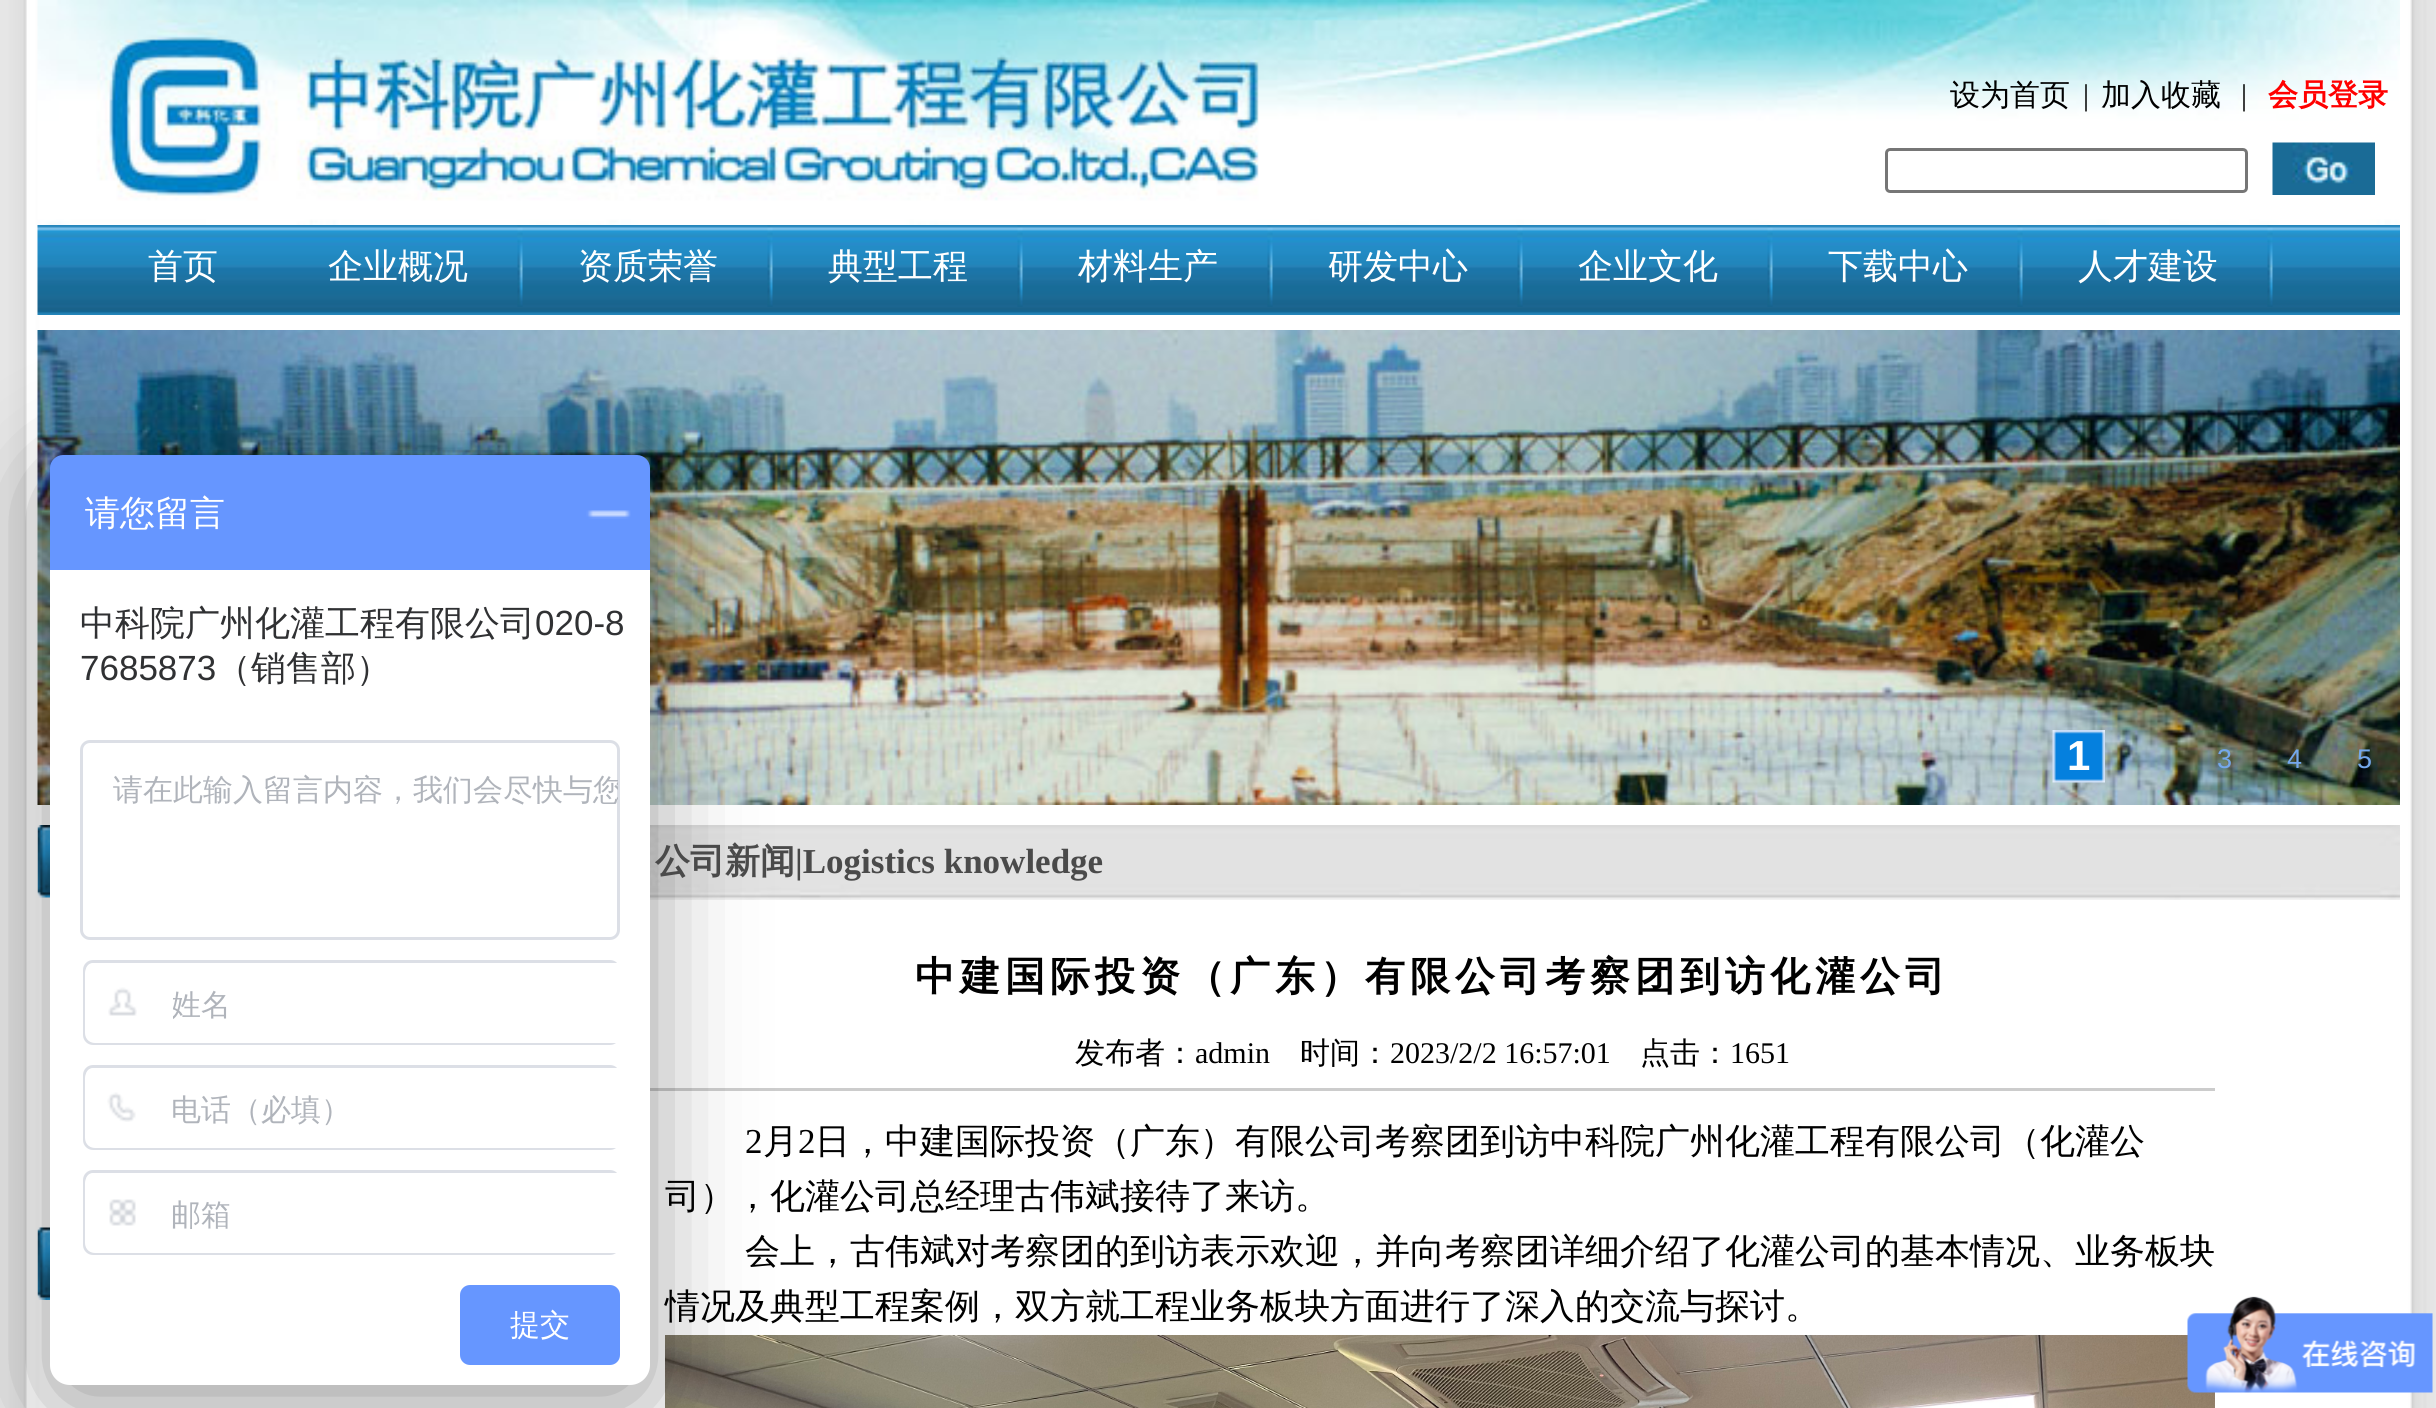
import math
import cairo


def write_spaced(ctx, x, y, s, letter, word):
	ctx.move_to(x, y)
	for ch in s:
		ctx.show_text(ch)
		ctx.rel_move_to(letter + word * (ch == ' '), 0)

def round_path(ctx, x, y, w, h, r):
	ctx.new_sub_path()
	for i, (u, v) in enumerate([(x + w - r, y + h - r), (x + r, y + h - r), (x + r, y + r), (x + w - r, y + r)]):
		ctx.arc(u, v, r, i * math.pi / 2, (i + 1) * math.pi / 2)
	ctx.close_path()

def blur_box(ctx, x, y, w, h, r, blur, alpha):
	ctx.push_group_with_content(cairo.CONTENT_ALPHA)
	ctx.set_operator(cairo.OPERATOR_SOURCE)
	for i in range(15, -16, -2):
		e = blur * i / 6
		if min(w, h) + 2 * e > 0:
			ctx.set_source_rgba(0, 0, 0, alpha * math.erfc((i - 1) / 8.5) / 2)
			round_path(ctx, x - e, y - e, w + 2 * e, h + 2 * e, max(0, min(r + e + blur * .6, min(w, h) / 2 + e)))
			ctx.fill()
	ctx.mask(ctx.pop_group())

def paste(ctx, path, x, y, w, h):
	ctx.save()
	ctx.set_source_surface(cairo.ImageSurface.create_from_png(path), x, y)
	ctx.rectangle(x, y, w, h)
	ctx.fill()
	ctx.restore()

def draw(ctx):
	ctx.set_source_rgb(1, 1, 1)
	ctx.paint()
	paste(ctx, 'media/1.png', 0, 0, 2436, 1408)
	paste(ctx, 'media/2.png', 37, 0, 2363, 225)
	ctx.select_font_face('WenQuanYi Zen Hei Medium')
	ctx.set_font_size(30)
	ctx.set_source_rgb(0, 0, 0)
	ctx.move_to(1950, 105)
	ctx.show_text('设为首页')
	ctx.select_font_face('Liberation Serif')
	ctx.move_to(2083, 105)
	ctx.show_text('|')
	ctx.select_font_face('WenQuanYi Zen Hei Medium')
	ctx.move_to(2101, 105)
	ctx.show_text('加入收藏')
	ctx.select_font_face('Liberation Serif')
	ctx.move_to(2241, 105)
	ctx.show_text('|')
	ctx.select_font_face('WenQuanYi Zen Hei', cairo.FONT_SLANT_NORMAL, cairo.FONT_WEIGHT_BOLD)
	ctx.set_source_rgb(1, 0, 0)
	ctx.move_to(2268, 105)
	ctx.show_text('会员登录')
	round_path(ctx, 1886.5, 149.5, 360, 42, 3.5)
	ctx.set_source_rgb(0.463, 0.463, 0.463)
	ctx.set_line_width(3)
	ctx.stroke()
	paste(ctx, 'media/3.png', 2272, 142, 103, 53)
	paste(ctx, 'media/4.png', 37, 225, 2363, 90)
	ctx.select_font_face('WenQuanYi Zen Hei Medium')
	ctx.set_font_size(35)
	ctx.set_source_rgb(1, 1, 1)
	ctx.move_to(148, 278)
	ctx.show_text('首页')
	paste(ctx, 'media/5.png', 517, 225, 6, 82)
	ctx.move_to(328, 278)
	ctx.show_text('企业概况')
	paste(ctx, 'media/5.png', 767, 225, 6, 82)
	ctx.move_to(578, 278)
	ctx.show_text('资质荣誉')
	paste(ctx, 'media/5.png', 1017, 225, 6, 82)
	ctx.move_to(828, 278)
	ctx.show_text('典型工程')
	paste(ctx, 'media/5.png', 1267, 225, 6, 82)
	ctx.move_to(1078, 278)
	ctx.show_text('材料生产')
	paste(ctx, 'media/5.png', 1517, 225, 6, 82)
	ctx.move_to(1328, 278)
	ctx.show_text('研发中心')
	paste(ctx, 'media/5.png', 1767, 225, 6, 82)
	ctx.move_to(1578, 278)
	ctx.show_text('企业文化')
	paste(ctx, 'media/5.png', 2017, 225, 6, 82)
	ctx.move_to(1828, 278)
	ctx.show_text('下载中心')
	paste(ctx, 'media/5.png', 2267, 225, 6, 82)
	ctx.move_to(2078, 278)
	ctx.show_text('人才建设')
	paste(ctx, 'media/11.png', 37, 330, 2363, 475)
	paste(ctx, 'media/13.png', 37, 825, 13, 73)
	paste(ctx, 'media/14.png', 37, 1227, 13, 73)
	paste(ctx, 'media/15.png', 650, 825, 1750, 75)
	ctx.set_source_rgb(0.8, 0.8, 0.8)
	ctx.rectangle(650, 1088, 1565, 3)
	ctx.fill()
	paste(ctx, 'media/16.png', 665, 1335, 1550, 73)
	ctx.set_source_rgb(0, 0, 0)
	blur_box(ctx, 50, 475, 600, 930, 20, 50, 0.4)
	ctx.set_source_rgb(1, 1, 1)
	round_path(ctx, 50, 455, 600, 930, 20)
	ctx.fill()
	ctx.set_source_rgb(0.4, 0.588, 1)
	ctx.new_path()
	ctx.move_to(63, 455)
	ctx.line_to(637, 455)
	ctx.curve_to(644, 455, 650, 461, 650, 468)
	ctx.line_to(650, 570)
	ctx.line_to(50, 570)
	ctx.line_to(50, 468)
	ctx.curve_to(50, 461, 56, 455, 63, 455)
	ctx.close_path()
	ctx.fill()
	ctx.set_source_rgb(1, 1, 1)
	ctx.move_to(85, 525)
	ctx.show_text('请您留言')
	paste(ctx, 'media/6.png', 586, 510, 45, 9)
	ctx.set_source_rgb(0.188, 0.192, 0.2)
	ctx.move_to(80, 635)
	ctx.show_text('中科院广州化灌工程有限公司')
	ctx.select_font_face('Liberation Sans')
	ctx.move_to(535, 635)
	ctx.show_text('020-8')
	ctx.move_to(80, 680)
	ctx.show_text('7685873')
	ctx.select_font_face('WenQuanYi Zen Hei Medium')
	ctx.move_to(216, 680)
	ctx.show_text('（销售部）')
	round_path(ctx, 81.5, 741.5, 537, 197, 8.5)
	ctx.set_source_rgb(0.863, 0.875, 0.902)
	ctx.stroke()
	ctx.save()
	round_path(ctx, 83, 743, 535, 195, 8)
	ctx.clip()
	ctx.set_font_size(30)
	ctx.set_source_rgb(0.69, 0.706, 0.733)
	ctx.move_to(113, 800)
	ctx.show_text('请在此输入留言内容，我们会尽快与您')
	ctx.restore()
	round_path(ctx, 84.5, 961.5, 534, 82, 8.5)
	ctx.stroke()
	ctx.set_source_rgb(1, 1, 1)
	ctx.new_path()
	ctx.move_to(95, 963)
	ctx.line_to(173, 963)
	ctx.line_to(173, 1043)
	ctx.line_to(95, 1043)
	ctx.curve_to(89.5, 1043, 85, 1038.5, 85, 1033)
	ctx.line_to(85, 973)
	ctx.curve_to(85, 967.5, 89.5, 963, 95, 963)
	ctx.close_path()
	ctx.fill()
	paste(ctx, 'media/7.png', 108, 987, 29, 29)
	ctx.rectangle(173, 963, 447, 80)
	ctx.fill()
	ctx.save()
	ctx.rectangle(173, 985, 452, 43)
	ctx.clip()
	ctx.set_font_size(30)
	ctx.set_source_rgb(0.69, 0.706, 0.733)
	ctx.move_to(171, 1015)
	ctx.show_text('姓名')
	ctx.restore()
	round_path(ctx, 84.5, 1066.5, 534, 82, 8.5)
	ctx.set_source_rgb(0.863, 0.875, 0.902)
	ctx.stroke()
	ctx.set_source_rgb(1, 1, 1)
	ctx.new_path()
	ctx.move_to(95, 1068)
	ctx.line_to(173, 1068)
	ctx.line_to(173, 1148)
	ctx.line_to(95, 1148)
	ctx.curve_to(89.5, 1148, 85, 1143.5, 85, 1138)
	ctx.line_to(85, 1078)
	ctx.curve_to(85, 1072.5, 89.5, 1068, 95, 1068)
	ctx.close_path()
	ctx.fill()
	paste(ctx, 'media/8.png', 107, 1092, 29, 30)
	ctx.rectangle(173, 1068, 447, 80)
	ctx.fill()
	ctx.set_font_size(30)
	ctx.set_source_rgb(0.69, 0.706, 0.733)
	ctx.move_to(171, 1120)
	ctx.show_text('电话（必填）')
	round_path(ctx, 84.5, 1171.5, 534, 82, 8.5)
	ctx.set_source_rgb(0.863, 0.875, 0.902)
	ctx.stroke()
	ctx.set_source_rgb(1, 1, 1)
	ctx.new_path()
	ctx.move_to(95, 1173)
	ctx.line_to(173, 1173)
	ctx.line_to(173, 1253)
	ctx.line_to(95, 1253)
	ctx.curve_to(89.5, 1253, 85, 1248.5, 85, 1243)
	ctx.line_to(85, 1183)
	ctx.curve_to(85, 1177.5, 89.5, 1173, 95, 1173)
	ctx.close_path()
	ctx.fill()
	paste(ctx, 'media/9.png', 109, 1199, 27, 27)
	ctx.rectangle(173, 1173, 447, 80)
	ctx.fill()
	ctx.set_source_rgb(0.69, 0.706, 0.733)
	ctx.move_to(171, 1225)
	ctx.show_text('邮箱')
	ctx.set_source_rgb(0.4, 0.588, 1)
	round_path(ctx, 460, 1285, 160, 80, 10)
	ctx.fill()
	ctx.set_source_rgb(1, 1, 1)
	ctx.move_to(510, 1335)
	ctx.show_text('提交')
	paste(ctx, 'media/10.png', 2187, 1296, 246, 97)
	paste(ctx, 'media/12.png', 2052, 730, 53, 53)
	ctx.select_font_face('Liberation Sans', cairo.FONT_SLANT_NORMAL, cairo.FONT_WEIGHT_BOLD)
	ctx.set_font_size(42)
	ctx.move_to(2067, 770)
	ctx.show_text('1')
	ctx.select_font_face('Liberation Sans')
	ctx.set_font_size(27)
	ctx.set_source_rgb(0.455, 0.659, 0.929)
	for x, y, s in [
		(2217, 768, '3'),
		(2287, 768, '4'),
		(2357, 768, '5'),
	]:
		ctx.move_to(x, y)
		ctx.show_text(s)
	ctx.select_font_face('WenQuanYi Zen Hei', cairo.FONT_SLANT_NORMAL, cairo.FONT_WEIGHT_BOLD)
	ctx.set_font_size(35)
	ctx.set_source_rgb(0.29, 0.29, 0.29)
	ctx.move_to(655, 873)
	ctx.show_text('公司新闻')
	ctx.select_font_face('Liberation Serif', cairo.FONT_SLANT_NORMAL, cairo.FONT_WEIGHT_BOLD)
	ctx.move_to(795, 873)
	ctx.show_text('|Logistics knowledge')
	ctx.select_font_face('WenQuanYi Zen Hei', cairo.FONT_SLANT_NORMAL, cairo.FONT_WEIGHT_BOLD)
	ctx.set_font_size(40)
	ctx.set_source_rgb(0, 0, 0)
	write_spaced(ctx, 915, 990, '中建国际投资（广东）有限公司考察团到访化灌公司', 5, 0)
	ctx.select_font_face('WenQuanYi Zen Hei Medium')
	ctx.set_font_size(30)
	ctx.move_to(1075, 1063)
	ctx.show_text('发布者：')
	ctx.select_font_face('Liberation Serif')
	ctx.move_to(1195, 1063)
	ctx.show_text('admin')
	ctx.select_font_face('WenQuanYi Zen Hei Medium')
	ctx.move_to(1300, 1063)
	ctx.show_text('时间：')
	ctx.select_font_face('Liberation Serif')
	ctx.move_to(1390, 1063)
	ctx.show_text('2023/2/2 16:57:01')
	ctx.select_font_face('WenQuanYi Zen Hei Medium')
	ctx.move_to(1640, 1063)
	ctx.show_text('点击：')
	ctx.select_font_face('Liberation Serif')
	ctx.move_to(1730, 1063)
	ctx.show_text('1651')
	ctx.set_font_size(35)
	ctx.move_to(745, 1153)
	ctx.show_text('2')
	ctx.select_font_face('WenQuanYi Zen Hei Medium')
	ctx.move_to(763, 1153)
	ctx.show_text('月')
	ctx.select_font_face('Liberation Serif')
	ctx.move_to(798, 1153)
	ctx.show_text('2')
	ctx.select_font_face('WenQuanYi Zen Hei Medium')
	for x, y, s in [
		(815, 1153, '日，中建国际投资（广东）有限公司考察团到访中科院广州化灌工程有限公司（化灌公'),
		(665, 1208, '司），化灌公司总经理古伟斌接待了来访。'),
		(745, 1263, '会上，古伟斌对考察团的到访表示欢迎，并向考察团详细介绍了化灌公司的基本情况、业务板块'),
		(665, 1318, '情况及典型工程案例，双方就工程业务板块方面进行了深入的交流与探讨。'),
	]:
		ctx.move_to(x, y)
		ctx.show_text(s)


surface = cairo.ImageSurface(cairo.FORMAT_RGB24, 2436, 1408)
ctx = cairo.Context(surface)
options = cairo.FontOptions()
options.set_hint_metrics(cairo.HINT_METRICS_OFF)
options.set_hint_style(cairo.HINT_STYLE_NONE)
ctx.set_font_options(options)
ctx.set_miter_limit(4)
draw(ctx)
surface.write_to_png('image.png')
